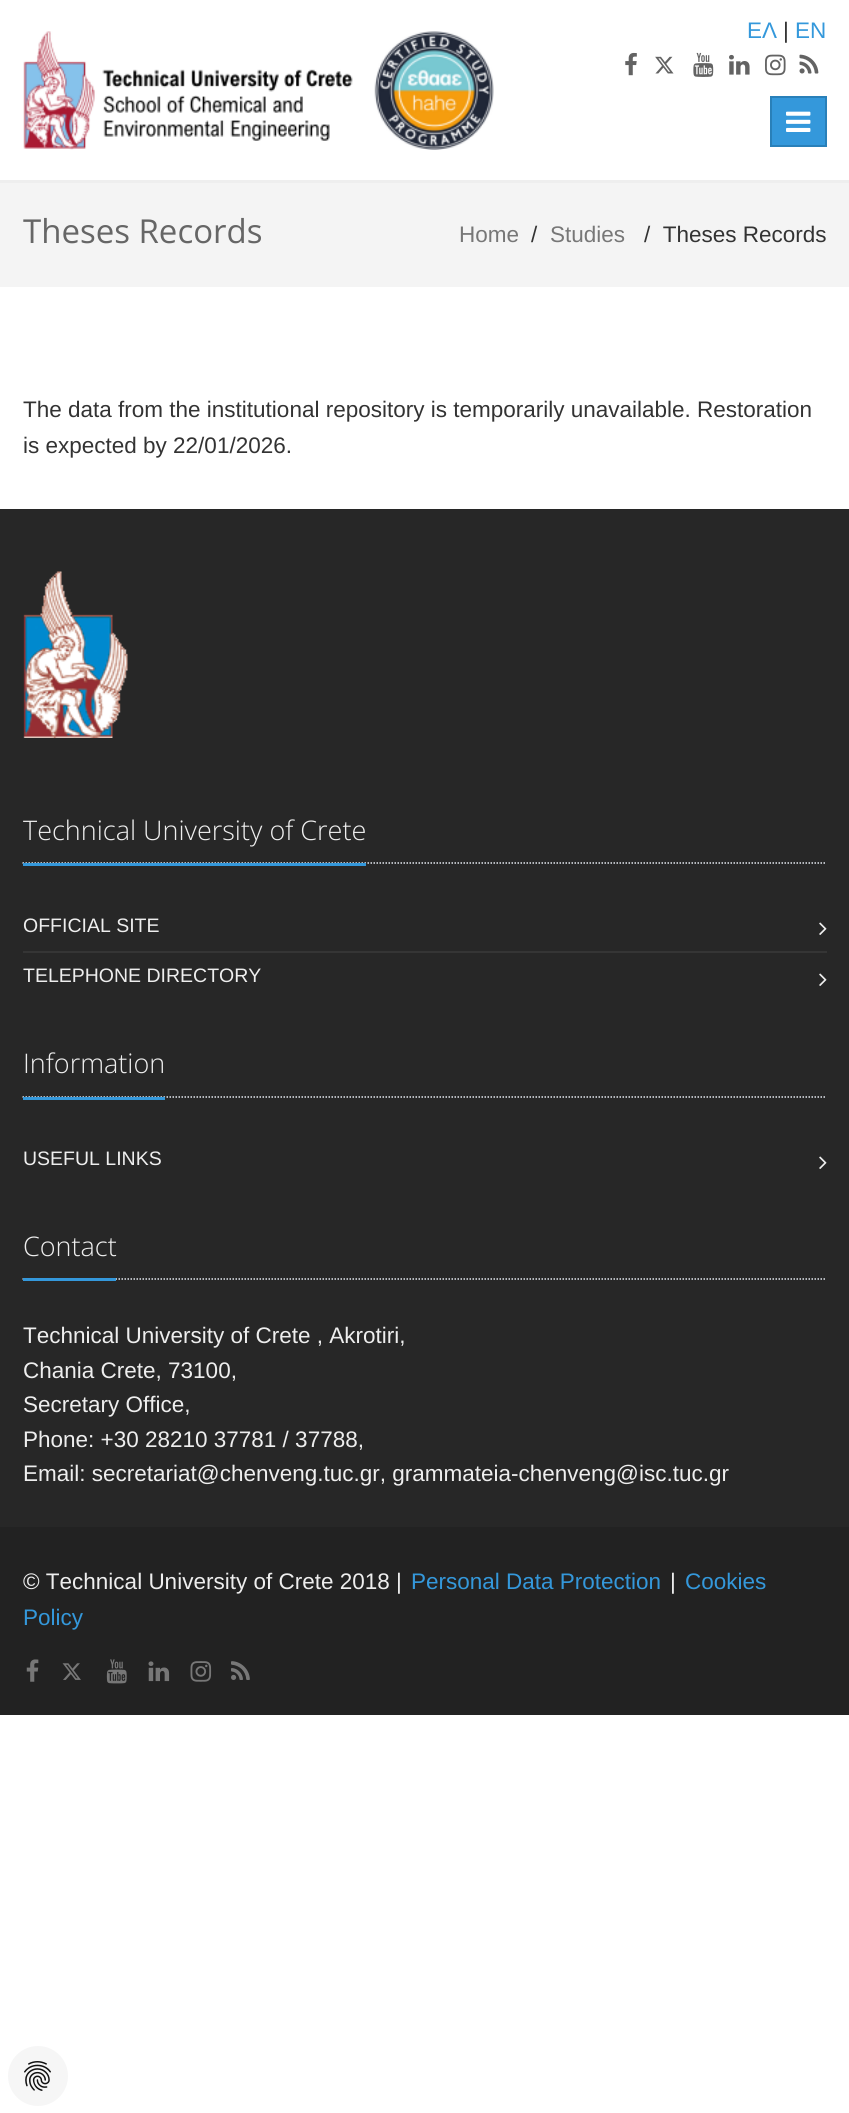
import math
import cairo


def paste(ctx, path, x, y, w, h):
	ctx.save()
	ctx.set_source_surface(cairo.ImageSurface.create_from_png(path), x, y)
	ctx.rectangle(x, y, w, h)
	ctx.fill()
	ctx.restore()

def draw(ctx):
	ctx.set_source_rgb(1, 1, 1)
	ctx.paint()
	ctx.set_source_rgb(0.933, 0.933, 0.933)
	ctx.rectangle(0, 180, 849, 3)
	ctx.fill()
	paste(ctx, 'media/1.png', 23, 31, 471, 119)
	ctx.select_font_face('Liberation Sans')
	ctx.set_font_size(22.5)
	ctx.set_source_rgb(0.204, 0.596, 0.859)
	ctx.move_to(747, 38)
	ctx.show_text('ΕΛ')
	ctx.set_source_rgb(0.2, 0.2, 0.2)
	ctx.move_to(783, 38)
	ctx.show_text('|')
	ctx.set_source_rgb(0.204, 0.596, 0.859)
	ctx.move_to(795, 38)
	ctx.show_text('EN')
	paste(ctx, 'media/2.png', 625, 52, 12, 24)
	paste(ctx, 'media/3.png', 655, 56, 19, 18)
	paste(ctx, 'media/4.png', 693, 52, 21, 25)
	paste(ctx, 'media/5.png', 729, 54, 21, 21)
	paste(ctx, 'media/6.png', 765, 54, 21, 22)
	paste(ctx, 'media/7.png', 799, 54, 20, 20)
	ctx.rectangle(771, 97, 55, 49)
	ctx.fill_preserve()
	ctx.set_source_rgb(0.161, 0.502, 0.725)
	ctx.stroke()
	paste(ctx, 'media/8.png', 786, 111, 25, 21)
	ctx.set_source_rgb(0.957, 0.957, 0.957)
	ctx.rectangle(0, 183, 849, 104)
	ctx.fill()
	ctx.select_font_face('Open Sans')
	ctx.set_font_size(33)
	ctx.set_source_rgb(0.4, 0.4, 0.4)
	ctx.move_to(23, 243)
	ctx.show_text('Theses Records')
	ctx.select_font_face('Liberation Sans')
	ctx.set_font_size(22.5)
	ctx.set_source_rgb(0.467, 0.467, 0.467)
	ctx.move_to(459, 242)
	ctx.show_text('Home')
	ctx.set_source_rgb(0.2, 0.2, 0.2)
	ctx.move_to(531, 242)
	ctx.show_text('/')
	ctx.set_source_rgb(0.467, 0.467, 0.467)
	ctx.move_to(550, 242)
	ctx.show_text('Studies')
	ctx.set_source_rgb(0.2, 0.2, 0.2)
	for x, y, s in [
		(644, 242, '/  Theses Records'),
		(23, 417, 'The data from the institutional repository is temporarily unavailable. Restoration'),
		(23, 453, 'is expected by 22/01/2026.'),
	]:
		ctx.move_to(x, y)
		ctx.show_text(s)
	ctx.set_source_rgb(0.153, 0.153, 0.153)
	ctx.rectangle(0, 509, 849, 1018)
	ctx.fill()
	paste(ctx, 'media/9.png', 23, 571, 105, 167)
	ctx.new_path()
	ctx.move_to(22.5, 863)
	ctx.line_to(826.5, 863)
	ctx.set_source_rgb(0.894, 0.914, 0.941)
	ctx.set_line_width(1.5)
	ctx.set_dash([1.5, 1.5])
	ctx.stroke()
	ctx.set_source_rgb(0.204, 0.596, 0.859)
	ctx.rectangle(23, 863, 343, 3)
	ctx.fill()
	ctx.select_font_face('Open Sans Light')
	ctx.set_font_size(27)
	ctx.set_source_rgb(0.933, 0.933, 0.933)
	ctx.move_to(23, 840)
	ctx.show_text('Technical University of Crete')
	ctx.select_font_face('Liberation Sans')
	ctx.set_font_size(19.5)
	ctx.move_to(23, 932)
	ctx.show_text('OFFICIAL SITE')
	paste(ctx, 'media/10.png', 819, 922, 8, 13)
	ctx.set_source_rgb(0.208, 0.208, 0.208)
	ctx.rectangle(23, 951, 804, 2)
	ctx.fill()
	ctx.set_source_rgb(0.933, 0.933, 0.933)
	ctx.move_to(23, 982)
	ctx.show_text('TELEPHONE DIRECTORY')
	paste(ctx, 'media/10.png', 819, 973, 8, 13)
	ctx.new_path()
	ctx.move_to(22.5, 1097)
	ctx.line_to(826.5, 1097)
	ctx.set_source_rgb(0.894, 0.914, 0.941)
	ctx.stroke()
	ctx.set_source_rgb(0.204, 0.596, 0.859)
	ctx.rectangle(23, 1097, 142, 3)
	ctx.fill()
	ctx.select_font_face('Open Sans Light')
	ctx.set_font_size(27)
	ctx.set_source_rgb(0.933, 0.933, 0.933)
	ctx.move_to(23, 1073)
	ctx.show_text('Information')
	ctx.select_font_face('Liberation Sans')
	ctx.set_font_size(19.5)
	ctx.move_to(23, 1165)
	ctx.show_text('USEFUL LINKS')
	paste(ctx, 'media/10.png', 819, 1156, 8, 13)
	ctx.new_path()
	ctx.move_to(22.5, 1279)
	ctx.line_to(826.5, 1279)
	ctx.set_source_rgb(0.894, 0.914, 0.941)
	ctx.stroke()
	ctx.set_source_rgb(0.204, 0.596, 0.859)
	ctx.rectangle(23, 1278, 93, 3)
	ctx.fill()
	ctx.select_font_face('Open Sans Light')
	ctx.set_font_size(27)
	ctx.set_source_rgb(0.933, 0.933, 0.933)
	ctx.move_to(23, 1256)
	ctx.show_text('Contact')
	ctx.select_font_face('Liberation Sans')
	ctx.set_font_size(22.5)
	for x, y, s in [
		(23, 1343, 'Technical University of Crete , Akrotiri,'),
		(23, 1378, 'Chania Crete, 73100,'),
		(23, 1412, 'Secretary Office,'),
		(23, 1447, 'Phone: +30 28210 37781 / 37788,'),
		(23, 1481, 'Email: secretariat@chenveng.tuc.gr, grammateia-chenveng@isc.tuc.gr'),
	]:
		ctx.move_to(x, y)
		ctx.show_text(s)
	ctx.set_source_rgb(0.133, 0.133, 0.133)
	ctx.rectangle(0, 1527, 849, 188)
	ctx.fill()
	ctx.set_source_rgb(0.933, 0.933, 0.933)
	ctx.move_to(23, 1589)
	ctx.show_text('© Technical University of Crete 2018 |')
	ctx.set_source_rgb(0.204, 0.596, 0.859)
	ctx.move_to(411, 1589)
	ctx.show_text('Personal Data Protection')
	ctx.set_source_rgb(0.933, 0.933, 0.933)
	ctx.move_to(670, 1589)
	ctx.show_text('|')
	ctx.set_source_rgb(0.204, 0.596, 0.859)
	ctx.move_to(685, 1589)
	ctx.show_text('Cookies')
	ctx.move_to(23, 1625)
	ctx.show_text('Policy')
	paste(ctx, 'media/11.png', 26, 1659, 13, 23)
	paste(ctx, 'media/12.png', 62, 1663, 19, 17)
	paste(ctx, 'media/13.png', 106, 1659, 21, 25)
	paste(ctx, 'media/14.png', 148, 1661, 22, 21)
	paste(ctx, 'media/15.png', 190, 1661, 22, 21)
	paste(ctx, 'media/16.png', 231, 1661, 19, 19)
	ctx.set_source_rgb(0.961, 0.961, 0.961)
	ctx.arc(38, 2076, 30, 0, 2 * math.pi)
	ctx.fill()
	paste(ctx, 'media/17.png', 24, 2061, 27, 30)


surface = cairo.ImageSurface(cairo.FORMAT_RGB24, 849, 2113)
ctx = cairo.Context(surface)
options = cairo.FontOptions()
options.set_hint_metrics(cairo.HINT_METRICS_OFF)
options.set_hint_style(cairo.HINT_STYLE_NONE)
ctx.set_font_options(options)
ctx.set_miter_limit(4)
draw(ctx)
surface.write_to_png('image.png')
